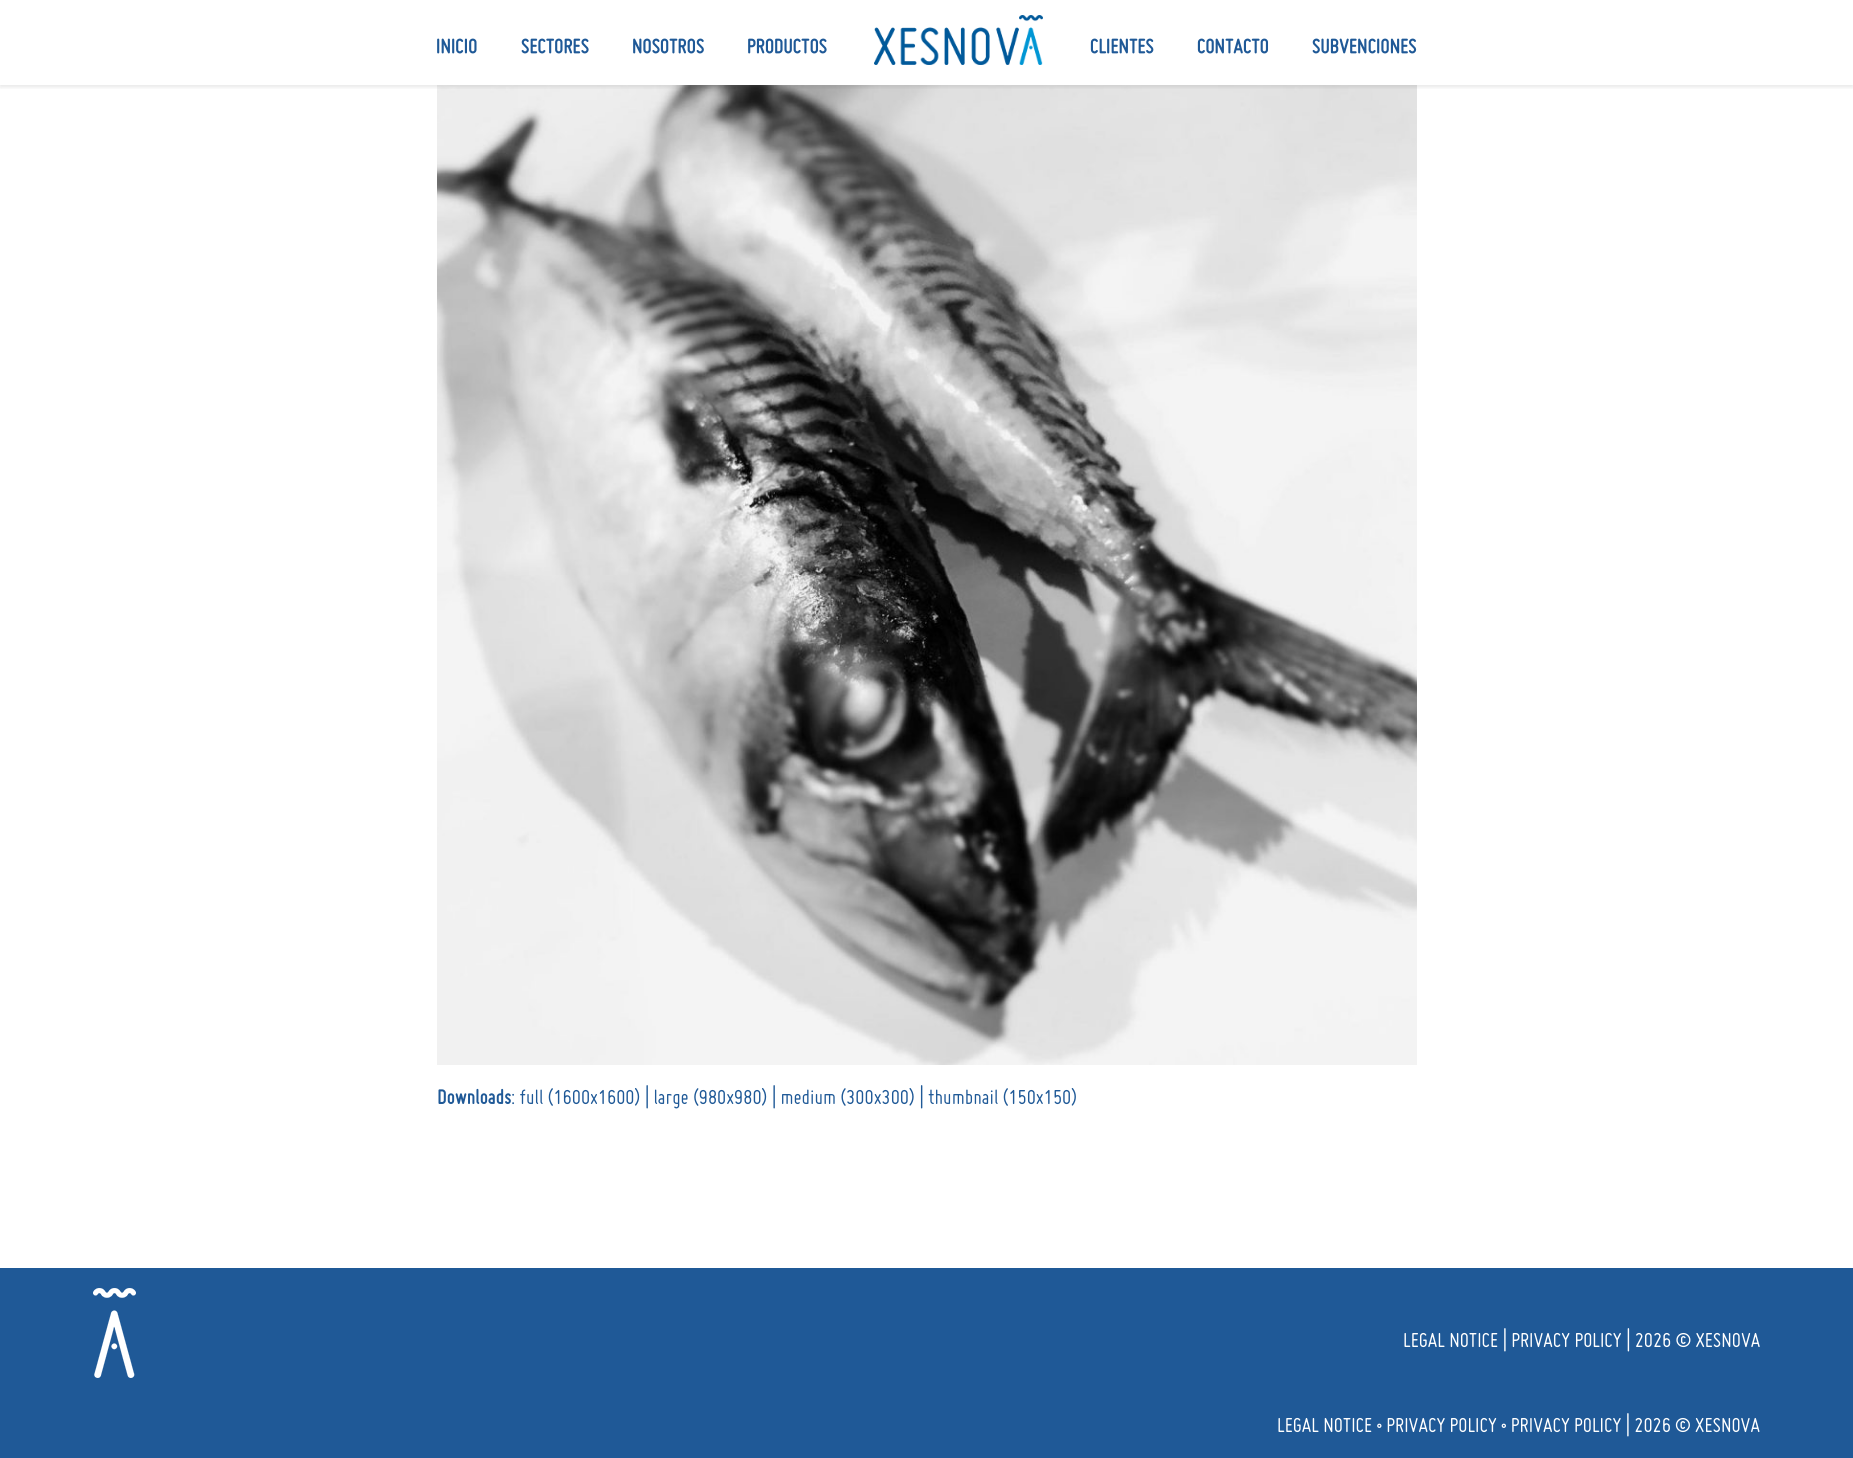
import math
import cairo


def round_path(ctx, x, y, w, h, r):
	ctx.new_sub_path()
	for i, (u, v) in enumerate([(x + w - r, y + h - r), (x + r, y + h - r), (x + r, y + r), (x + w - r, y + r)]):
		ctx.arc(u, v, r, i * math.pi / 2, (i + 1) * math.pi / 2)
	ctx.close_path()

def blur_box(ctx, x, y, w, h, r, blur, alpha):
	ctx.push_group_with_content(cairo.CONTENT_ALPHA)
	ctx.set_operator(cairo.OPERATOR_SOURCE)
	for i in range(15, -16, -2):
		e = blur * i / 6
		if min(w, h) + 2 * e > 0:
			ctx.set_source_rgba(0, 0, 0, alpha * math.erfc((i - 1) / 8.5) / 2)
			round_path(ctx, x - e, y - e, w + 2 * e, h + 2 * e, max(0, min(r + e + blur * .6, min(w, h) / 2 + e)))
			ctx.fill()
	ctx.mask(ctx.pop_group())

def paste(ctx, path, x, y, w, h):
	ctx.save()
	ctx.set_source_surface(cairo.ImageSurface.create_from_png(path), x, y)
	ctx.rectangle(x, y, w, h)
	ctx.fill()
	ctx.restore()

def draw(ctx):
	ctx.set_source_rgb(1, 1, 1)
	ctx.paint()
	paste(ctx, 'media/2.png', 437, 85, 980, 980)
	ctx.save()
	ctx.rectangle(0, 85, 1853, 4)
	ctx.clip()
	ctx.set_source_rgb(0, 0, 0)
	blur_box(ctx, 0, 2, 1853, 85, 0, 2.5, 0.1)
	ctx.restore()
	ctx.select_font_face('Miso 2', cairo.FONT_SLANT_NORMAL, cairo.FONT_WEIGHT_BOLD)
	ctx.set_font_size(22)
	ctx.set_source_rgb(0.122, 0.349, 0.592)
	for x, y, s in [
		(436, 53, 'INICIO'),
		(521, 53, 'SECTORES'),
		(632, 53, 'NOSOTROS'),
		(747, 53, 'PRODUCTOS'),
	]:
		ctx.move_to(x, y)
		ctx.show_text(s)
	paste(ctx, 'media/1.png', 874, 15, 169, 50)
	for x, y, s in [
		(1090, 53, 'CLIENTES'),
		(1197, 53, 'CONTACTO'),
		(1312, 53, 'SUBVENCIONES'),
	]:
		ctx.move_to(x, y)
		ctx.show_text(s)
	ctx.select_font_face('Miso', cairo.FONT_SLANT_NORMAL, cairo.FONT_WEIGHT_BOLD)
	ctx.move_to(437, 1104)
	ctx.show_text('Downloads')
	ctx.select_font_face('Miso')
	ctx.move_to(511, 1104)
	ctx.show_text(': full (1600x1600) | large (980x980) | medium (300x300) | thumbnail (150x150)')
	ctx.rectangle(0, 1268, 1853, 190)
	ctx.fill()
	paste(ctx, 'media/3.png', 93, 1288, 43, 90)
	ctx.set_source_rgb(1, 1, 1)
	ctx.move_to(1403, 1347)
	ctx.show_text('LEGAL NOTICE | PRIVACY POLICY | 2026 © XESNOVA')
	ctx.move_to(1277, 1432)
	ctx.show_text('LEGAL NOTICE • PRIVACY POLICY • PRIVACY POLICY | 2026 © XESNOVA')


surface = cairo.ImageSurface(cairo.FORMAT_RGB24, 1853, 1458)
ctx = cairo.Context(surface)
options = cairo.FontOptions()
options.set_hint_metrics(cairo.HINT_METRICS_OFF)
options.set_hint_style(cairo.HINT_STYLE_NONE)
ctx.set_font_options(options)
ctx.set_miter_limit(4)
draw(ctx)
surface.write_to_png('image.png')
